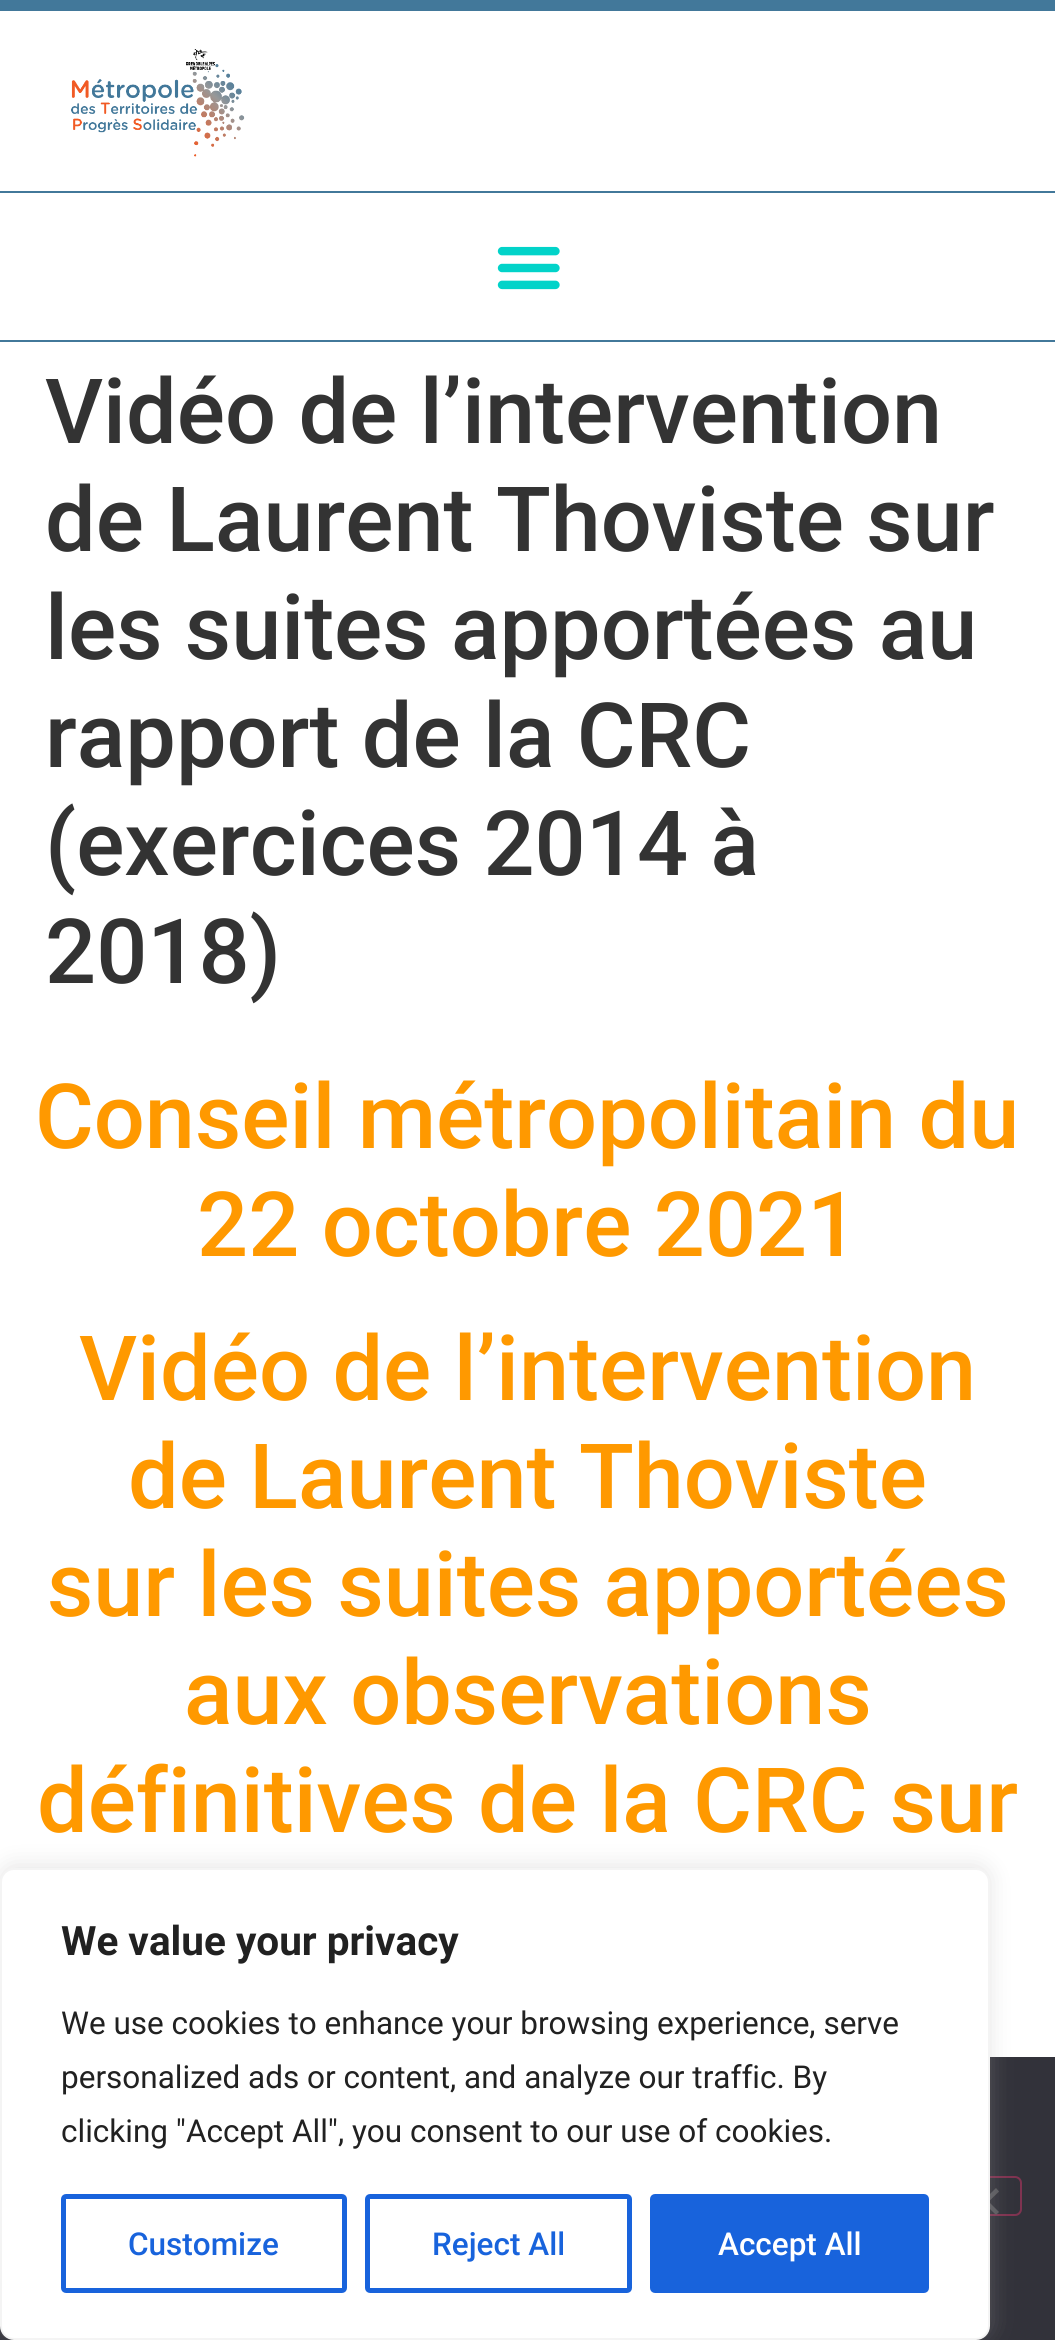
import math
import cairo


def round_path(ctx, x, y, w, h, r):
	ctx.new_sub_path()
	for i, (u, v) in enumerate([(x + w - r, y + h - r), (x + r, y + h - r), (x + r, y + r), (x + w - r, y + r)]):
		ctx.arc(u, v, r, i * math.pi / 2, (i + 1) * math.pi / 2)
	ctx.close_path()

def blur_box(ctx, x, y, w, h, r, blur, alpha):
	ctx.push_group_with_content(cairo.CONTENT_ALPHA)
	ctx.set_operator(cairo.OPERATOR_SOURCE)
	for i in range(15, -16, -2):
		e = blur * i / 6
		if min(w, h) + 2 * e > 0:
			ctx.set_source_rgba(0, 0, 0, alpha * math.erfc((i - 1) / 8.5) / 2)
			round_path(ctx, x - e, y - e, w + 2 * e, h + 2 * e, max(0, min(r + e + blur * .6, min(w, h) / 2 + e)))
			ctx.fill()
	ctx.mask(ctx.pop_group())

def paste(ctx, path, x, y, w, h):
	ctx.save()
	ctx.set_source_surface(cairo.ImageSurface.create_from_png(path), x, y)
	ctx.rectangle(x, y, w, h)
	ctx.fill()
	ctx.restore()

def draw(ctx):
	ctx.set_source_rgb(1, 1, 1)
	ctx.paint()
	ctx.set_source_rgb(0.259, 0.471, 0.604)
	ctx.rectangle(0, 0, 1055, 11)
	ctx.fill()
	paste(ctx, 'media/1.png', 71, 49, 174, 108)
	ctx.rectangle(0, 191, 1055, 2)
	ctx.fill()
	ctx.rectangle(0, 340, 1055, 2)
	ctx.fill()
	paste(ctx, 'media/2.png', 497, 246, 63, 44)
	ctx.select_font_face('Roboto Medium')
	ctx.set_font_size(90)
	ctx.set_source_rgb(0.2, 0.2, 0.2)
	for x, y, s in [
		(45, 443, 'Vidéo de l’intervention'),
		(45, 551, 'de Laurent Thoviste sur'),
		(45, 659, 'les suites apportées au'),
		(45, 767, 'rapport de la CRC'),
		(45, 875, '(exercices 2014 à'),
		(45, 983, '2018)'),
	]:
		ctx.move_to(x, y)
		ctx.show_text(s)
	ctx.set_source_rgb(1, 0.6, 0)
	for x, y, s in [
		(35, 1148, 'Conseil métropolitain du'),
		(197, 1256, '22 octobre 2021'),
		(79, 1400, 'Vidéo de l’intervention'),
		(128, 1508, 'de Laurent Thoviste'),
		(47, 1616, 'sur les suites apportées'),
		(184, 1724, 'aux observations'),
		(37, 1832, 'définitives de la CRC sur'),
	]:
		ctx.move_to(x, y)
		ctx.show_text(s)
	ctx.set_source_rgb(0.196, 0.196, 0.227)
	ctx.rectangle(0, 2057, 1055, 283)
	ctx.fill()
	round_path(ctx, 946, 2177, 75, 38, 6)
	ctx.set_source_rgb(0.498, 0.2, 0.314)
	ctx.stroke()
	ctx.set_source_rgb(0.349, 0.349, 0.365)
	ctx.new_path()
	ctx.move_to(996, 2188)
	ctx.line_to(999, 2191.5)
	ctx.line_to(975, 2215)
	ctx.line_to(972, 2212)
	ctx.close_path()
	ctx.fill()
	ctx.new_path()
	ctx.move_to(972, 2191.5)
	ctx.line_to(975, 2188)
	ctx.line_to(999, 2212)
	ctx.line_to(996, 2215)
	ctx.close_path()
	ctx.fill()
	ctx.set_source_rgb(0.675, 0.671, 0.671)
	blur_box(ctx, 0, 1865, 990, 473, 14, 11, 0.3)
	ctx.set_source_rgb(1, 1, 1)
	round_path(ctx, 1, 1869, 988, 470, 13)
	ctx.fill_preserve()
	ctx.set_source_rgb(0.957, 0.957, 0.957)
	ctx.stroke()
	ctx.select_font_face('Roboto', cairo.FONT_SLANT_NORMAL, cairo.FONT_WEIGHT_BOLD)
	ctx.set_font_size(40.5)
	ctx.set_source_rgb(0.129, 0.129, 0.129)
	ctx.move_to(61, 1955)
	ctx.show_text('We value your privacy')
	ctx.select_font_face('Roboto')
	ctx.set_font_size(31.5)
	for x, y, s in [
		(61, 2034, 'We use cookies to enhance your browsing experience, serve'),
		(61, 2088, 'personalized ads or content, and analyze our traffic. By'),
		(61, 2142, 'clicking "Accept All", you consent to our use of cookies.'),
	]:
		ctx.move_to(x, y)
		ctx.show_text(s)
	round_path(ctx, 63.5, 2196.5, 281, 94, 2.5)
	ctx.set_source_rgb(0.094, 0.388, 0.863)
	ctx.set_line_width(5)
	ctx.stroke()
	ctx.select_font_face('Roboto Medium')
	ctx.move_to(128, 2255)
	ctx.show_text('Customize')
	round_path(ctx, 367.5, 2196.5, 262, 94, 2.5)
	ctx.stroke()
	ctx.move_to(432, 2255)
	ctx.show_text('Reject All')
	round_path(ctx, 652.5, 2196.5, 274, 94, 2.5)
	ctx.fill_preserve()
	ctx.stroke()
	ctx.set_source_rgb(1, 1, 1)
	ctx.move_to(718, 2255)
	ctx.show_text('Accept All')


surface = cairo.ImageSurface(cairo.FORMAT_RGB24, 1055, 2340)
ctx = cairo.Context(surface)
options = cairo.FontOptions()
options.set_hint_metrics(cairo.HINT_METRICS_OFF)
options.set_hint_style(cairo.HINT_STYLE_NONE)
ctx.set_font_options(options)
ctx.set_miter_limit(4)
draw(ctx)
surface.write_to_png('image.png')
